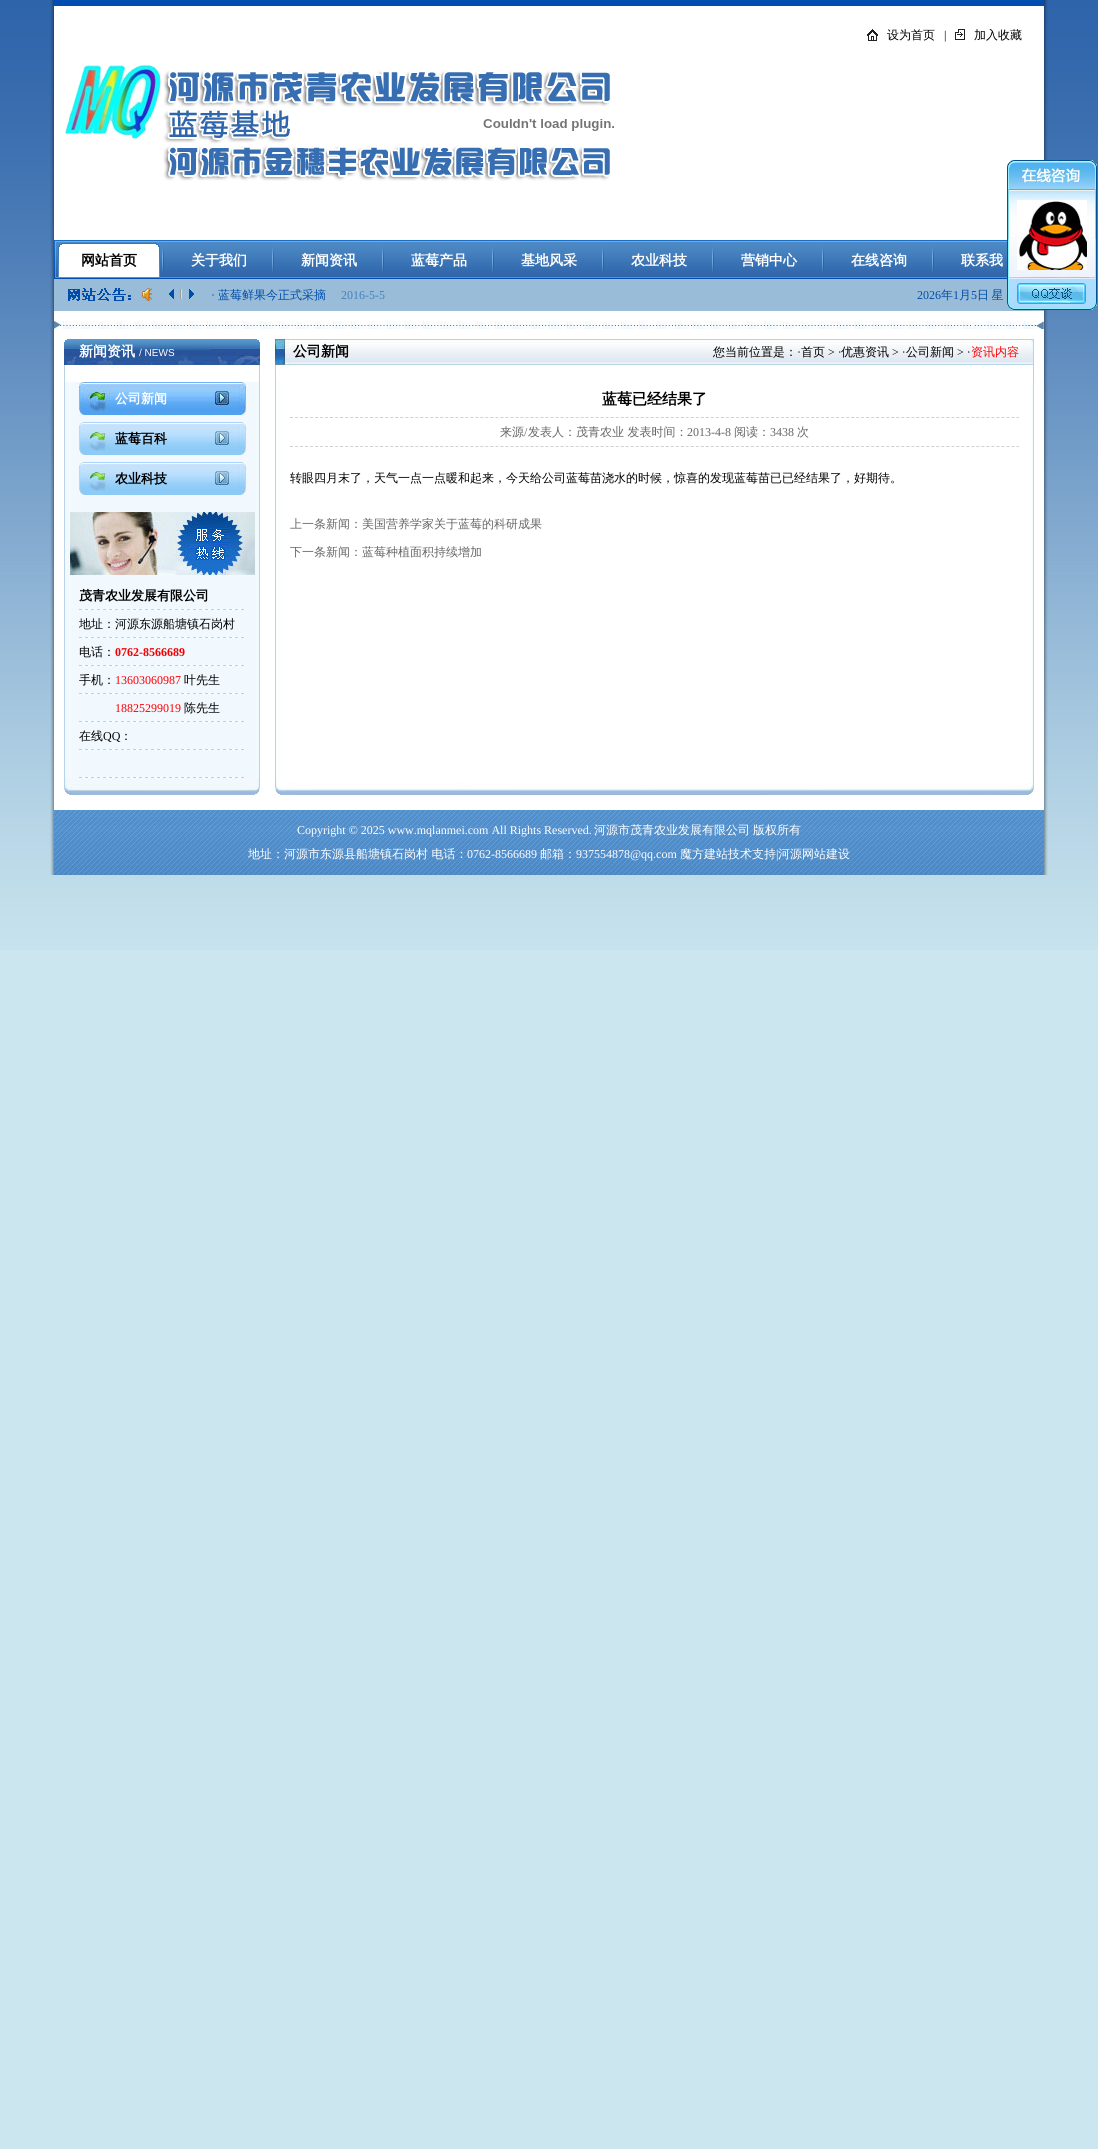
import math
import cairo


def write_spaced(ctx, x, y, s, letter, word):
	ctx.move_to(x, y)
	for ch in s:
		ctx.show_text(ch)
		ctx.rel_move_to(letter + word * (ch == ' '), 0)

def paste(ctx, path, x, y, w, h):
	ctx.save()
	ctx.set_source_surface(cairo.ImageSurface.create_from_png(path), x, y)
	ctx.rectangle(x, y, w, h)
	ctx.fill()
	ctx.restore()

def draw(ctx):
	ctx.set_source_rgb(0.796, 0.902, 0.937)
	ctx.paint()
	paste(ctx, 'media/1.png', 0, 0, 1098, 950)
	paste(ctx, 'media/2.png', 50, 0, 998, 339)
	ctx.set_source_rgb(0.004, 0.306, 0.69)
	ctx.rectangle(54, 0, 990, 6)
	ctx.fill()
	paste(ctx, 'media/3.png', 867, 29, 11, 12)
	ctx.select_font_face('WenQuanYi Zen Hei Medium')
	ctx.set_font_size(12)
	ctx.set_source_rgb(0, 0, 0)
	ctx.move_to(887, 39)
	ctx.show_text('设为首页')
	ctx.select_font_face('Liberation Serif')
	ctx.move_to(944, 39)
	ctx.show_text('|')
	paste(ctx, 'media/4.png', 955, 29, 10, 11)
	ctx.select_font_face('WenQuanYi Zen Hei Medium')
	ctx.move_to(974, 39)
	ctx.show_text('加入收藏')
	paste(ctx, 'media/6.png', 483, 119, 131, 12)
	paste(ctx, 'media/5.png', 65, 64, 545, 117)
	paste(ctx, 'media/7.png', 54, 240, 990, 71)
	paste(ctx, 'media/8.png', 54, 241, 2, 37)
	paste(ctx, 'media/9.png', 162, 247, 2, 26)
	paste(ctx, 'media/10.png', 58, 243, 102, 34)
	ctx.select_font_face('WenQuanYi Zen Hei', cairo.FONT_SLANT_NORMAL, cairo.FONT_WEIGHT_BOLD)
	ctx.set_font_size(14)
	ctx.move_to(81, 265)
	ctx.show_text('网站首页')
	paste(ctx, 'media/9.png', 272, 247, 2, 26)
	ctx.set_source_rgb(1, 1, 1)
	ctx.move_to(191, 265)
	ctx.show_text('关于我们')
	paste(ctx, 'media/9.png', 382, 247, 2, 26)
	ctx.move_to(301, 265)
	ctx.show_text('新闻资讯')
	paste(ctx, 'media/9.png', 492, 247, 2, 26)
	ctx.move_to(411, 265)
	ctx.show_text('蓝莓产品')
	paste(ctx, 'media/9.png', 602, 247, 2, 26)
	ctx.move_to(521, 265)
	ctx.show_text('基地风采')
	paste(ctx, 'media/9.png', 712, 247, 2, 26)
	ctx.move_to(631, 265)
	ctx.show_text('农业科技')
	paste(ctx, 'media/9.png', 822, 247, 2, 26)
	ctx.move_to(741, 265)
	ctx.show_text('营销中心')
	paste(ctx, 'media/9.png', 932, 247, 2, 26)
	ctx.move_to(851, 265)
	ctx.show_text('在线咨询')
	ctx.move_to(961, 265)
	ctx.show_text('联系我')
	paste(ctx, 'media/11.png', 65, 288, 87, 13)
	ctx.set_source_rgb(0.612, 0.612, 0.612)
	ctx.rectangle(180, 289, 1, 10)
	ctx.fill()
	paste(ctx, 'media/12.png', 169, 289, 5, 10)
	ctx.set_source_rgb(0.859, 0.859, 0.859)
	ctx.rectangle(181, 289, 1, 10)
	ctx.fill()
	paste(ctx, 'media/13.png', 189, 289, 5, 10)
	ctx.select_font_face('Liberation Serif')
	ctx.set_font_size(12)
	ctx.set_source_rgb(0, 0.302, 0.667)
	ctx.move_to(211, 299)
	ctx.show_text('·')
	ctx.select_font_face('WenQuanYi Zen Hei Medium')
	ctx.move_to(218, 299)
	ctx.show_text('蓝莓鲜果今正式采摘')
	ctx.select_font_face('Liberation Serif')
	ctx.set_source_rgb(0.271, 0.506, 0.745)
	ctx.move_to(341, 299)
	ctx.show_text('2016-5-5')
	ctx.set_source_rgb(0, 0.302, 0.667)
	ctx.move_to(917, 299)
	ctx.show_text('2026')
	ctx.select_font_face('WenQuanYi Zen Hei Medium')
	ctx.move_to(941, 299)
	ctx.show_text('年')
	ctx.select_font_face('Liberation Serif')
	ctx.move_to(953, 299)
	ctx.show_text('1')
	ctx.select_font_face('WenQuanYi Zen Hei Medium')
	ctx.move_to(959, 299)
	ctx.show_text('月')
	ctx.select_font_face('Liberation Serif')
	ctx.move_to(971, 299)
	ctx.show_text('5')
	ctx.select_font_face('WenQuanYi Zen Hei Medium')
	write_spaced(ctx, 977, 299, '日 星', 0, -1)
	paste(ctx, 'media/14.png', 54, 321, 990, 8)
	paste(ctx, 'media/15.png', 1007, 160, 8, 150)
	paste(ctx, 'media/16.png', 1015, 160, 74, 150)
	paste(ctx, 'media/17.png', 1017, 200, 70, 70)
	paste(ctx, 'media/18.png', 1017, 283, 69, 21)
	paste(ctx, 'media/19.png', 1089, 160, 8, 150)
	paste(ctx, 'media/20.png', 50, 339, 998, 471)
	paste(ctx, 'media/21.png', 64, 339, 196, 43)
	ctx.select_font_face('WenQuanYi Zen Hei', cairo.FONT_SLANT_NORMAL, cairo.FONT_WEIGHT_BOLD)
	ctx.set_font_size(14)
	ctx.set_source_rgb(1, 1, 1)
	ctx.move_to(79, 356)
	ctx.show_text('新闻资讯')
	ctx.select_font_face('Liberation Sans')
	ctx.set_font_size(10)
	ctx.move_to(139, 356)
	ctx.show_text('/ NEWS')
	paste(ctx, 'media/22.png', 275, 339, 759, 43)
	ctx.select_font_face('WenQuanYi Zen Hei', cairo.FONT_SLANT_NORMAL, cairo.FONT_WEIGHT_BOLD)
	ctx.set_font_size(14)
	ctx.set_source_rgb(0, 0, 0)
	ctx.move_to(293, 356)
	ctx.show_text('公司新闻')
	ctx.select_font_face('WenQuanYi Zen Hei Medium')
	ctx.set_font_size(12)
	ctx.move_to(713, 356)
	ctx.show_text('您当前位置是：')
	ctx.select_font_face('Liberation Serif')
	ctx.move_to(797, 356)
	ctx.show_text('·')
	ctx.select_font_face('WenQuanYi Zen Hei Medium')
	ctx.move_to(801, 356)
	ctx.show_text('首页')
	ctx.select_font_face('Liberation Serif')
	ctx.move_to(828, 356)
	ctx.show_text('> ·')
	ctx.select_font_face('WenQuanYi Zen Hei Medium')
	ctx.move_to(841, 356)
	ctx.show_text('优惠资讯')
	ctx.select_font_face('Liberation Serif')
	ctx.move_to(892, 356)
	ctx.show_text('> ·')
	ctx.select_font_face('WenQuanYi Zen Hei Medium')
	ctx.move_to(906, 356)
	ctx.show_text('公司新闻')
	ctx.select_font_face('Liberation Serif')
	ctx.move_to(957, 356)
	ctx.show_text('> ·')
	ctx.select_font_face('WenQuanYi Zen Hei Medium')
	ctx.set_source_rgb(1, 0, 0)
	ctx.move_to(971, 356)
	ctx.show_text('资讯内容')
	paste(ctx, 'media/23.png', 64, 382, 970, 396)
	paste(ctx, 'media/24.png', 79, 382, 167, 33)
	ctx.select_font_face('WenQuanYi Zen Hei', cairo.FONT_SLANT_NORMAL, cairo.FONT_WEIGHT_BOLD)
	ctx.set_font_size(13)
	ctx.set_source_rgb(1, 1, 1)
	ctx.move_to(115, 403)
	ctx.show_text('公司新闻')
	paste(ctx, 'media/25.png', 79, 422, 167, 33)
	ctx.set_source_rgb(0, 0, 0)
	ctx.move_to(115, 443)
	ctx.show_text('蓝莓百科')
	paste(ctx, 'media/25.png', 79, 462, 167, 33)
	ctx.move_to(115, 483)
	ctx.show_text('农业科技')
	paste(ctx, 'media/26.png', 70, 512, 185, 63)
	paste(ctx, 'media/27.png', 79, 609, 167, 1)
	ctx.move_to(79, 600)
	ctx.show_text('茂青农业发展有限公司')
	paste(ctx, 'media/27.png', 79, 637, 167, 1)
	ctx.select_font_face('WenQuanYi Zen Hei Medium')
	ctx.set_font_size(12)
	ctx.move_to(79, 628)
	ctx.show_text('地址：河源东源船塘镇石岗村')
	paste(ctx, 'media/27.png', 79, 665, 167, 1)
	ctx.move_to(79, 656)
	ctx.show_text('电话：')
	ctx.select_font_face('Liberation Serif', cairo.FONT_SLANT_NORMAL, cairo.FONT_WEIGHT_BOLD)
	ctx.set_source_rgb(0.941, 0, 0)
	ctx.move_to(115, 656)
	ctx.show_text('0762-8566689')
	paste(ctx, 'media/27.png', 79, 693, 167, 1)
	ctx.select_font_face('WenQuanYi Zen Hei Medium')
	ctx.set_source_rgb(0, 0, 0)
	ctx.move_to(79, 684)
	ctx.show_text('手机：')
	ctx.select_font_face('Liberation Serif')
	ctx.set_source_rgb(1, 0, 0)
	ctx.move_to(115, 684)
	ctx.show_text('13603060987')
	ctx.select_font_face('WenQuanYi Zen Hei Medium')
	ctx.set_source_rgb(0, 0, 0)
	ctx.move_to(184, 684)
	ctx.show_text('叶先生')
	paste(ctx, 'media/27.png', 79, 721, 167, 1)
	ctx.select_font_face('Liberation Serif')
	ctx.set_source_rgb(1, 0, 0)
	ctx.move_to(115, 712)
	ctx.show_text('18825299019')
	ctx.select_font_face('WenQuanYi Zen Hei Medium')
	ctx.set_source_rgb(0, 0, 0)
	ctx.move_to(184, 712)
	ctx.show_text('陈先生')
	paste(ctx, 'media/27.png', 79, 749, 167, 1)
	ctx.move_to(79, 740)
	ctx.show_text('在线')
	ctx.select_font_face('Liberation Serif')
	ctx.move_to(103, 740)
	ctx.show_text('QQ')
	ctx.select_font_face('WenQuanYi Zen Hei Medium')
	ctx.move_to(120, 740)
	ctx.show_text('：')
	paste(ctx, 'media/27.png', 79, 777, 167, 1)
	ctx.select_font_face('WenQuanYi Zen Hei', cairo.FONT_SLANT_NORMAL, cairo.FONT_WEIGHT_BOLD)
	ctx.set_font_size(15)
	ctx.move_to(602, 404)
	ctx.show_text('蓝莓已经结果了')
	ctx.new_path()
	ctx.move_to(290, 417.5)
	ctx.line_to(1019, 417.5)
	ctx.set_source_rgb(0.824, 0.82, 0.82)
	ctx.set_line_width(1)
	ctx.set_dash([3, 2.01])
	ctx.stroke()
	ctx.new_path()
	ctx.move_to(290, 446.5)
	ctx.line_to(1019, 446.5)
	ctx.stroke()
	ctx.select_font_face('WenQuanYi Zen Hei Medium')
	ctx.set_font_size(12)
	ctx.set_source_rgb(0.4, 0.4, 0.4)
	ctx.move_to(500, 436)
	ctx.show_text('来源')
	ctx.select_font_face('Liberation Serif')
	ctx.move_to(524, 436)
	ctx.show_text('/')
	ctx.select_font_face('WenQuanYi Zen Hei Medium')
	ctx.move_to(528, 436)
	ctx.show_text('发表人：茂青农业 发表时间：')
	ctx.select_font_face('Liberation Serif')
	ctx.move_to(687, 436)
	ctx.show_text('2013-4-8')
	ctx.select_font_face('WenQuanYi Zen Hei Medium')
	ctx.move_to(734, 436)
	ctx.show_text('阅读：')
	ctx.select_font_face('Liberation Serif')
	ctx.move_to(770, 436)
	ctx.show_text('3438')
	ctx.select_font_face('WenQuanYi Zen Hei Medium')
	ctx.move_to(797, 436)
	ctx.show_text('次')
	ctx.set_source_rgb(0, 0, 0)
	ctx.move_to(290, 482)
	ctx.show_text('转眼四月末了，天气一点一点暖和起来，今天给公司蓝莓苗浇水的时候，惊喜的发现蓝莓苗已已经结果了，好期待。')
	ctx.set_source_rgb(0.4, 0.4, 0.4)
	ctx.move_to(290, 528)
	ctx.show_text('上一条新闻：美国营养学家关于蓝莓的科研成果')
	ctx.move_to(290, 556)
	ctx.show_text('下一条新闻：蓝莓种植面积持续增加')
	paste(ctx, 'media/28.png', 64, 778, 970, 17)
	paste(ctx, 'media/29.png', 50, 810, 998, 65)
	paste(ctx, 'media/30.png', 54, 810, 990, 65)
	ctx.select_font_face('Liberation Serif')
	ctx.set_source_rgb(1, 1, 1)
	ctx.move_to(297, 834)
	ctx.show_text('Copyright © 2025 www.mqlanmei.com All Rights Reserved.')
	ctx.select_font_face('WenQuanYi Zen Hei Medium')
	for x, y, s in [
		(594, 834, '河源市茂青农业发展有限公司'),
		(753, 834, '版权所有'),
		(248, 858, '地址：河源市东源县船塘镇石岗村 电话：'),
	]:
		ctx.move_to(x, y)
		ctx.show_text(s)
	ctx.select_font_face('Liberation Serif')
	ctx.move_to(467, 858)
	ctx.show_text('0762-8566689')
	ctx.select_font_face('WenQuanYi Zen Hei Medium')
	ctx.move_to(540, 858)
	ctx.show_text('邮箱：')
	ctx.select_font_face('Liberation Serif')
	ctx.move_to(576, 858)
	ctx.show_text('937554878@qq.com')
	ctx.select_font_face('WenQuanYi Zen Hei Medium')
	ctx.move_to(680, 858)
	ctx.show_text('魔方建站技术支持')
	ctx.select_font_face('Liberation Serif')
	ctx.move_to(776, 858)
	ctx.show_text('|')
	ctx.select_font_face('WenQuanYi Zen Hei Medium')
	ctx.move_to(778, 858)
	ctx.show_text('河源网站建设')


surface = cairo.ImageSurface(cairo.FORMAT_RGB24, 1098, 2149)
ctx = cairo.Context(surface)
options = cairo.FontOptions()
options.set_hint_metrics(cairo.HINT_METRICS_OFF)
options.set_hint_style(cairo.HINT_STYLE_NONE)
ctx.set_font_options(options)
ctx.set_miter_limit(4)
draw(ctx)
surface.write_to_png('image.png')
